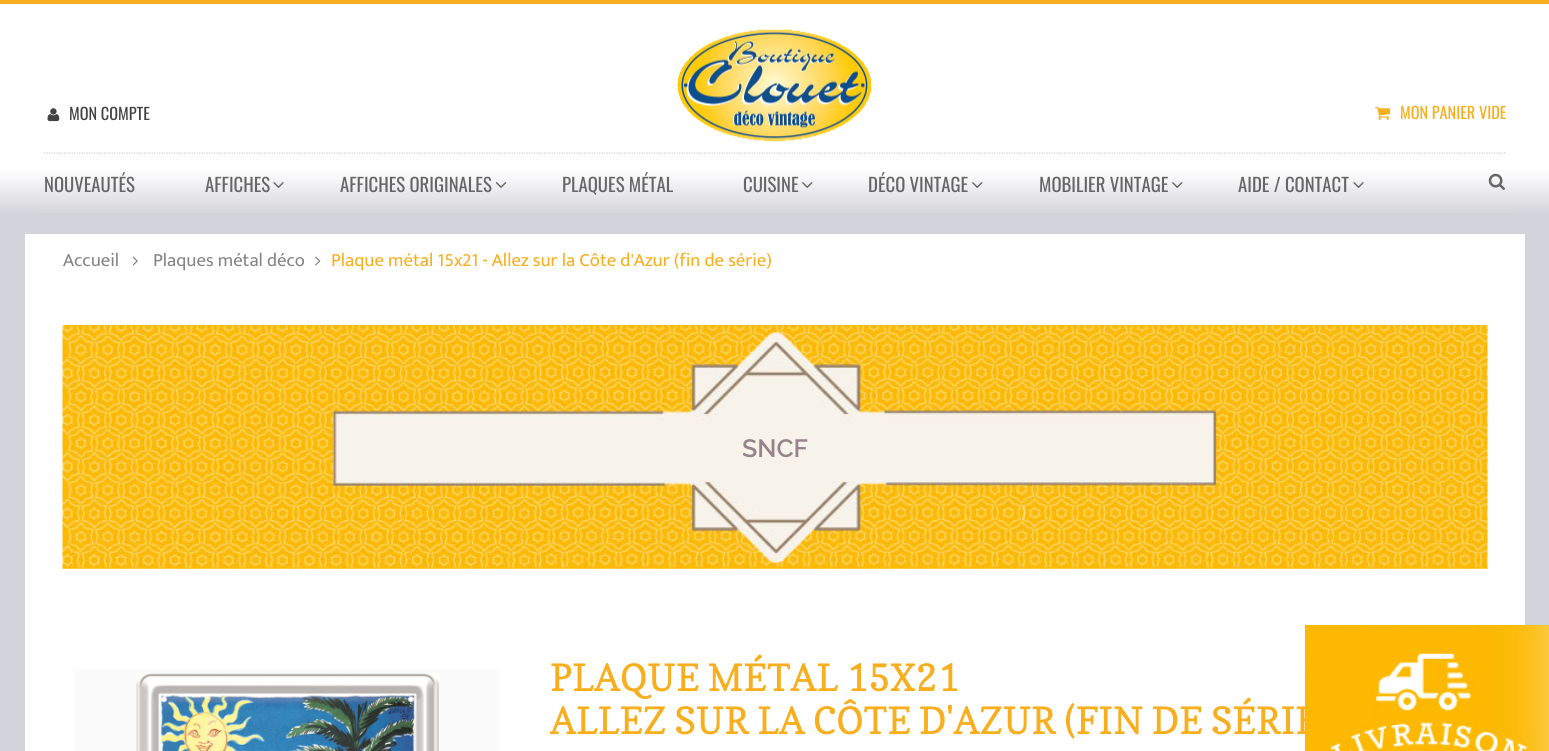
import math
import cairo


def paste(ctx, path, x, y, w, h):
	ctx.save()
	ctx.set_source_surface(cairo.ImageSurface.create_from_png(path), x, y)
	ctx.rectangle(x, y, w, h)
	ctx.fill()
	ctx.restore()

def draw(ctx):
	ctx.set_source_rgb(0.827, 0.827, 0.859)
	ctx.paint()
	gradient = cairo.LinearGradient(775, 0, 775, 215)
	gradient.add_color_stop_rgba(0, 1, 1, 1, 1)
	gradient.add_color_stop_rgba(0.79, 1, 1, 1, 1)
	gradient.add_color_stop_rgba(1, 0.831, 0.831, 0.859, 1)
	ctx.set_source(gradient)
	ctx.rectangle(0, 4, 1549, 209)
	ctx.fill()
	ctx.set_source_rgb(0.976, 0.682, 0.114)
	ctx.rectangle(0, 0, 1549, 4)
	ctx.fill()
	paste(ctx, 'media/1.png', 47, 108, 13, 14)
	ctx.select_font_face('Oswald')
	ctx.set_font_size(16.25)
	ctx.set_source_rgb(0.263, 0.263, 0.263)
	ctx.move_to(69, 120)
	ctx.show_text('MON COMPTE')
	paste(ctx, 'media/2.png', 677, 29, 194, 113)
	paste(ctx, 'media/3.png', 1375, 107, 16, 13)
	ctx.set_source_rgb(0.976, 0.682, 0.114)
	ctx.move_to(1400, 119)
	ctx.show_text('MON PANIER VIDE')
	paste(ctx, 'media/4.png', 1488, 173, 17, 17)
	ctx.new_path()
	ctx.move_to(44, 153)
	ctx.line_to(1506, 153)
	ctx.set_source_rgb(0.812, 0.812, 0.812)
	ctx.set_line_width(1.2)
	ctx.set_dash([1.25, 1.25])
	ctx.stroke()
	ctx.new_path()
	ctx.move_to(44, 214.5)
	ctx.line_to(1506, 214.5)
	ctx.stroke()
	ctx.set_font_size(18.75)
	ctx.set_source_rgb(0.4, 0.4, 0.4)
	ctx.move_to(44, 192)
	ctx.show_text('NOUVEAUTÉS')
	ctx.move_to(205, 192)
	ctx.show_text('AFFICHES')
	paste(ctx, 'media/5.png', 273, 182, 11, 6)
	ctx.move_to(340, 192)
	ctx.show_text('AFFICHES ORIGINALES')
	paste(ctx, 'media/6.png', 495, 182, 12, 6)
	ctx.move_to(562, 192)
	ctx.show_text('PLAQUES MÉTAL')
	ctx.move_to(743, 192)
	ctx.show_text('CUISINE')
	paste(ctx, 'media/7.png', 802, 182, 11, 6)
	ctx.move_to(868, 192)
	ctx.show_text('DÉCO VINTAGE')
	paste(ctx, 'media/7.png', 972, 182, 11, 6)
	ctx.move_to(1039, 192)
	ctx.show_text('MOBILIER VINTAGE')
	paste(ctx, 'media/7.png', 1172, 182, 11, 6)
	ctx.move_to(1238, 192)
	ctx.show_text('AIDE / CONTACT')
	paste(ctx, 'media/5.png', 1353, 182, 11, 6)
	ctx.set_source_rgb(1, 1, 1)
	ctx.rectangle(25, 234, 1500, 517)
	ctx.fill()
	ctx.select_font_face('Ek Mukta')
	ctx.set_source_rgb(0.518, 0.518, 0.518)
	ctx.move_to(63, 266)
	ctx.show_text('Accueil')
	paste(ctx, 'media/8.png', 132, 256, 6, 10)
	ctx.move_to(153, 266)
	ctx.show_text('Plaques métal déco')
	paste(ctx, 'media/9.png', 315, 256, 6, 10)
	ctx.set_source_rgb(0.976, 0.682, 0.114)
	ctx.move_to(331, 266)
	ctx.show_text('Plaque métal 15x21 - Allez sur la Côte d\'Azur (fin de série)')
	paste(ctx, 'media/10.png', 62, 325, 1426, 244)
	ctx.select_font_face('Raleway SemiBold')
	ctx.set_font_size(25)
	ctx.set_source_rgb(0.596, 0.51, 0.549)
	ctx.move_to(742, 457)
	ctx.show_text('SNCF')
	ctx.set_source_rgb(0.984, 0.984, 0.984)
	ctx.rectangle(75, 669, 425, 82)
	ctx.fill()
	paste(ctx, 'media/11.png', 136, 673, 303, 78)
	ctx.select_font_face('Copse')
	ctx.set_font_size(37.5)
	ctx.set_source_rgb(0.976, 0.682, 0.114)
	ctx.move_to(550, 691)
	ctx.show_text('PLAQUE MÉTAL 15X21')
	ctx.move_to(550, 734)
	ctx.show_text('ALLEZ SUR LA CÔTE D\'AZUR (FIN DE SÉRIE')
	paste(ctx, 'media/12.png', 1305, 625, 244, 126)


surface = cairo.ImageSurface(cairo.FORMAT_RGB24, 1549, 751)
ctx = cairo.Context(surface)
options = cairo.FontOptions()
options.set_hint_metrics(cairo.HINT_METRICS_OFF)
options.set_hint_style(cairo.HINT_STYLE_NONE)
ctx.set_font_options(options)
ctx.set_miter_limit(4)
draw(ctx)
surface.write_to_png('image.png')
